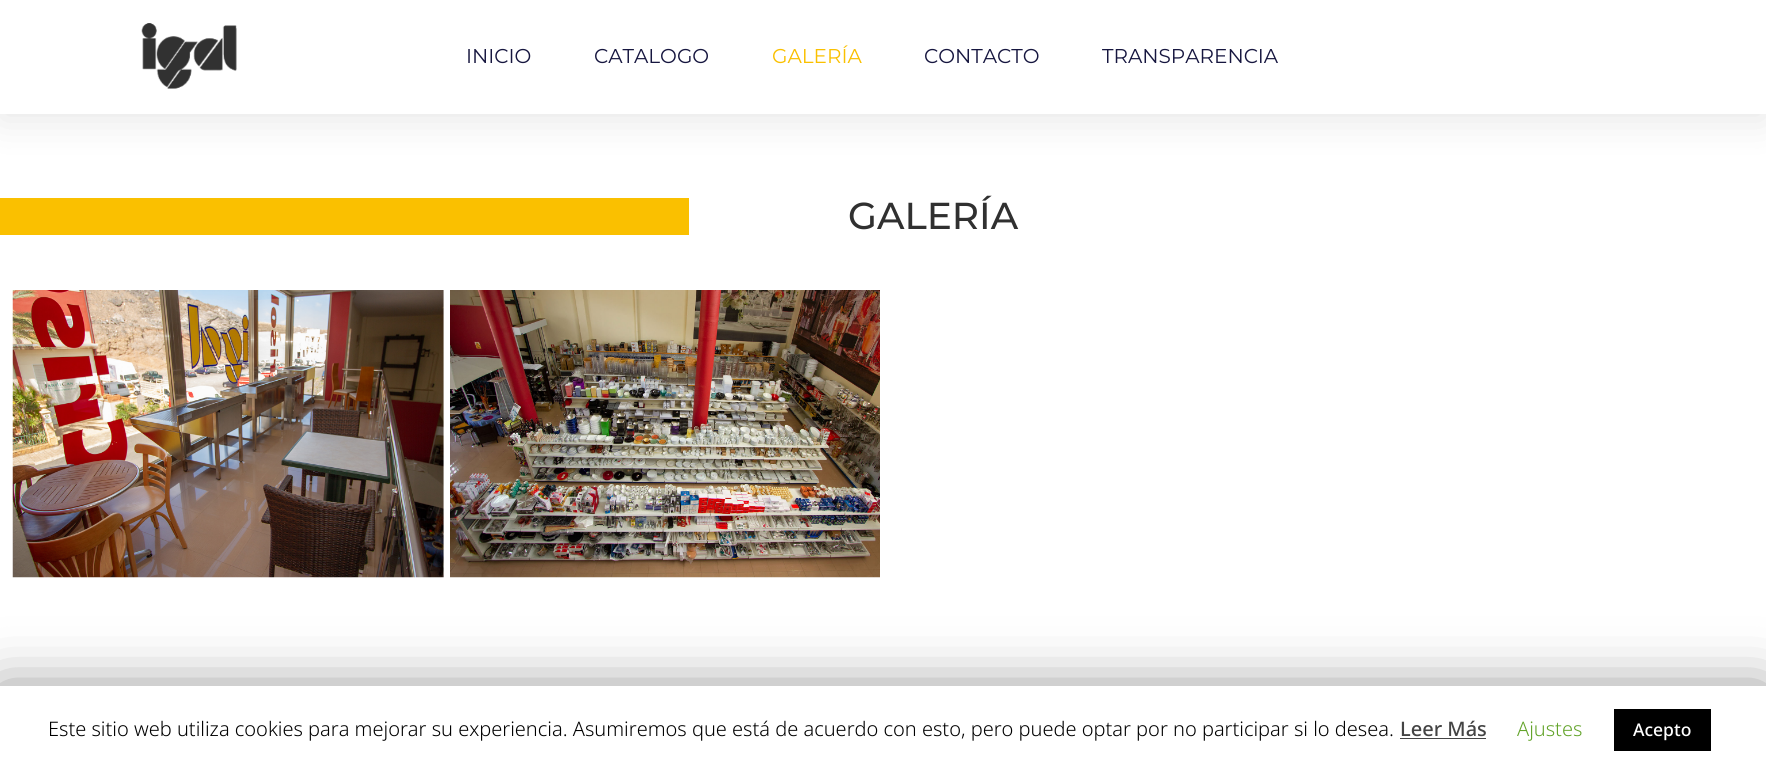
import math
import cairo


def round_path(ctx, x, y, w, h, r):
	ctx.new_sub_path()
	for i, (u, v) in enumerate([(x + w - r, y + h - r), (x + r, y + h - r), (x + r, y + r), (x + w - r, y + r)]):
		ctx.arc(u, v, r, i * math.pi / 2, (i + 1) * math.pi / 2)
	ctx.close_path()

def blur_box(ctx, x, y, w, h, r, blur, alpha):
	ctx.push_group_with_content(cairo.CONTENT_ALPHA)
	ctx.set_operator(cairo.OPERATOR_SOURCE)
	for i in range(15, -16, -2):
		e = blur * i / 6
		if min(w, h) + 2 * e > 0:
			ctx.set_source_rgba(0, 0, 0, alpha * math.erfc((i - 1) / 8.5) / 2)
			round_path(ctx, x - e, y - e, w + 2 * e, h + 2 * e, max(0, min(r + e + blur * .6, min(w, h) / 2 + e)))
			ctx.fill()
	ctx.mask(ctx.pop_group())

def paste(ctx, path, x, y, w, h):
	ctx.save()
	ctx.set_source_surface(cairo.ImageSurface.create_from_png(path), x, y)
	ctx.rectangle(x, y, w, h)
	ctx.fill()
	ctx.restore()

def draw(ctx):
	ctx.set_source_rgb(1, 1, 1)
	ctx.paint()
	ctx.set_source_rgb(0, 0, 0)
	blur_box(ctx, 0, 6, 1766, 114, 0, 19, 0.1)
	ctx.set_source_rgb(1, 1, 1)
	ctx.rectangle(0, 0, 1766, 114)
	ctx.fill()
	paste(ctx, 'media/1.png', 141, 23, 96, 66)
	ctx.select_font_face('Montserrat')
	ctx.set_font_size(20)
	ctx.set_source_rgb(0.086, 0.086, 0.247)
	ctx.move_to(466, 63)
	ctx.show_text('INICIO')
	ctx.move_to(594, 63)
	ctx.show_text('CATALOGO')
	ctx.set_source_rgb(0.98, 0.753, 0)
	ctx.move_to(772, 63)
	ctx.show_text('GALERÍA')
	ctx.set_source_rgb(0.086, 0.086, 0.247)
	ctx.move_to(924, 63)
	ctx.show_text('CONTACTO')
	ctx.move_to(1102, 63)
	ctx.show_text('TRANSPARENCIA')
	ctx.set_source_rgb(0.98, 0.753, 0)
	ctx.rectangle(0, 198, 689, 37)
	ctx.fill()
	ctx.select_font_face('Montserrat Medium')
	ctx.set_font_size(37.5)
	ctx.set_source_rgb(0.188, 0.188, 0.188)
	ctx.move_to(848, 229)
	ctx.show_text('GALERÍA')
	paste(ctx, 'media/2.png', 12, 290, 432, 288)
	paste(ctx, 'media/3.png', 450, 290, 430, 288)
	ctx.set_source_rgb(0, 0, 0)
	blur_box(ctx, 0, 693, 1766, 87, 0, 31, 0.5)
	ctx.set_source_rgb(1, 1, 1)
	ctx.rectangle(0, 686, 1766, 87)
	ctx.fill()
	ctx.select_font_face('Noto Sans Light')
	ctx.set_font_size(20)
	ctx.set_source_rgb(0, 0, 0)
	ctx.move_to(48, 736)
	ctx.show_text('Este sitio web utiliza cookies para mejorar su experiencia. Asumiremos que está de acuerdo con esto, pero puede optar por no participar si lo desea.')
	ctx.select_font_face('Noto Sans Medium')
	ctx.set_source_rgb(0.267, 0.267, 0.267)
	ctx.move_to(1400, 736)
	ctx.show_text('Leer Más')
	ctx.rectangle(1400, 738, 86, 1)
	ctx.fill()
	ctx.select_font_face('Noto Sans Light')
	ctx.set_source_rgb(0.384, 0.639, 0.161)
	ctx.move_to(1517, 736)
	ctx.show_text('Ajustes')
	ctx.set_source_rgb(0, 0, 0)
	ctx.rectangle(1614, 709, 97, 42)
	ctx.fill()
	ctx.select_font_face('Noto Sans Medium')
	ctx.set_font_size(17.5)
	ctx.set_source_rgb(1, 1, 1)
	ctx.move_to(1633, 736)
	ctx.show_text('Acepto')


surface = cairo.ImageSurface(cairo.FORMAT_RGB24, 1766, 773)
ctx = cairo.Context(surface)
options = cairo.FontOptions()
options.set_hint_metrics(cairo.HINT_METRICS_OFF)
options.set_hint_style(cairo.HINT_STYLE_NONE)
ctx.set_font_options(options)
ctx.set_miter_limit(4)
draw(ctx)
surface.write_to_png('image.png')
